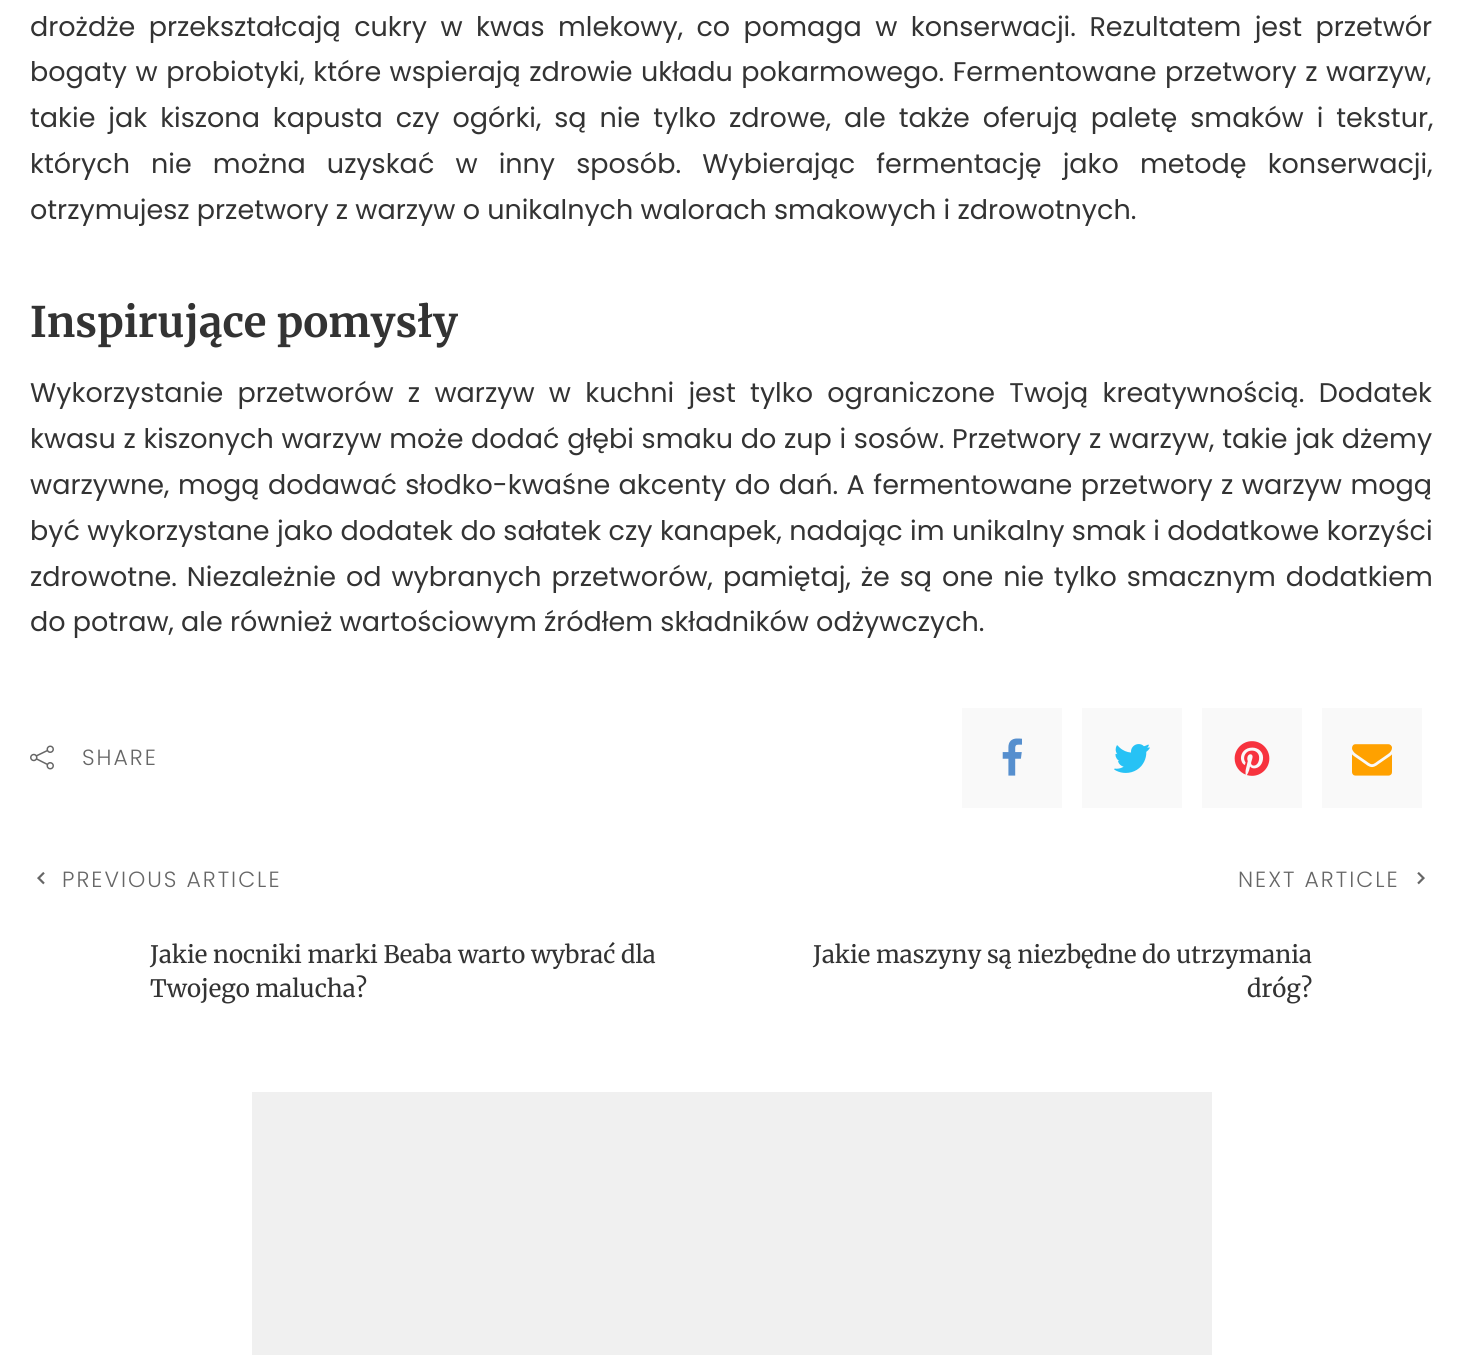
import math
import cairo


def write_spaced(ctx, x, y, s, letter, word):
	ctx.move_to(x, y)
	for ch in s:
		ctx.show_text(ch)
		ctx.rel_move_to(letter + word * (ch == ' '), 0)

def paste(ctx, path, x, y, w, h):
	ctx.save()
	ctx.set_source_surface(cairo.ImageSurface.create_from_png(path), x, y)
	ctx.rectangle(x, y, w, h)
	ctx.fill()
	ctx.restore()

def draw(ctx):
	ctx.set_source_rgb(1, 1, 1)
	ctx.paint()
	ctx.select_font_face('Poppins')
	ctx.set_font_size(27)
	ctx.set_source_rgb(0.2, 0.2, 0.2)
	write_spaced(ctx, 30, 36, 'drożdże przekształcają cukry w kwas mlekowy, co pomaga w konserwacji. Rezultatem jest przetwór', 0, 6.25)
	write_spaced(ctx, 30, 81, 'bogaty w probiotyki, które wspierają zdrowie układu pokarmowego. Fermentowane przetwory z warzyw,', 0, 1.25)
	write_spaced(ctx, 30, 127, 'takie jak kiszona kapusta czy ogórki, są nie tylko zdrowe, ale także oferują paletę smaków i tekstur,', 0, 5.75)
	write_spaced(ctx, 30, 173, 'których nie można uzyskać w inny sposób. Wybierając fermentację jako metodę konserwacji,', 0, 13.9)
	ctx.move_to(30, 219)
	ctx.show_text('otrzymujesz przetwory z warzyw o unikalnych walorach smakowych i zdrowotnych.')
	ctx.select_font_face('Merriweather', cairo.FONT_SLANT_NORMAL, cairo.FONT_WEIGHT_BOLD)
	ctx.set_font_size(42)
	ctx.move_to(30, 337)
	ctx.show_text('Inspirujące pomysły')
	ctx.select_font_face('Poppins')
	ctx.set_font_size(27)
	write_spaced(ctx, 30, 402, 'Wykorzystanie przetworów z warzyw w kuchni jest tylko ograniczone Twoją kreatywnością. Dodatek', 0, 7.1)
	write_spaced(ctx, 30, 448, 'kwasu z kiszonych warzyw może dodać głębi smaku do zup i sosów. Przetwory z warzyw, takie jak dżemy', 0, 0.5)
	write_spaced(ctx, 30, 494, 'warzywne, mogą dodawać słodko-kwaśne akcenty do dań. A fermentowane przetwory z warzyw mogą', 0, 1.25)
	write_spaced(ctx, 30, 540, 'być wykorzystane jako dodatek do sałatek czy kanapek, nadając im unikalny smak i dodatkowe korzyści', 0, 0.2)
	write_spaced(ctx, 30, 586, 'zdrowotne. Niezależnie od wybranych przetworów, pamiętaj, że są one nie tylko smacznym dodatkiem', 0, 2.75)
	ctx.move_to(30, 631)
	ctx.show_text('do potraw, ale również wartościowym źródłem składników odżywczych.')
	paste(ctx, 'media/1.png', 30, 745, 24, 25)
	ctx.select_font_face('Poppins Light')
	ctx.set_font_size(22)
	ctx.set_source_rgb(0.4, 0.4, 0.4)
	write_spaced(ctx, 82, 765, 'SHARE', 2, 0)
	ctx.set_source_rgb(0.976, 0.976, 0.976)
	ctx.rectangle(962, 708, 100, 100)
	ctx.fill()
	paste(ctx, 'media/2.png', 1002, 738, 20, 38)
	ctx.rectangle(1082, 708, 100, 100)
	ctx.fill()
	paste(ctx, 'media/3.png', 1114, 744, 36, 29)
	ctx.rectangle(1202, 708, 100, 100)
	ctx.fill()
	paste(ctx, 'media/4.png', 1234, 741, 36, 35)
	ctx.rectangle(1322, 708, 100, 100)
	ctx.fill()
	paste(ctx, 'media/5.png', 1352, 744, 40, 32)
	paste(ctx, 'media/6.png', 37, 872, 8, 13)
	ctx.set_source_rgb(0.4, 0.4, 0.4)
	write_spaced(ctx, 62, 887, 'PREVIOUS ARTICLE', 2, 0)
	ctx.select_font_face('Merriweather')
	ctx.set_font_size(24)
	ctx.set_source_rgb(0.2, 0.2, 0.2)
	ctx.move_to(150, 963)
	ctx.show_text('Jakie nocniki marki Beaba warto wybrać dla')
	ctx.move_to(150, 997)
	ctx.show_text('Twojego malucha?')
	ctx.select_font_face('Poppins Light')
	ctx.set_font_size(22)
	ctx.set_source_rgb(0.4, 0.4, 0.4)
	write_spaced(ctx, 1238, 887, 'NEXT ARTICLE', 2, 0)
	paste(ctx, 'media/7.png', 1417, 872, 8, 13)
	ctx.select_font_face('Merriweather')
	ctx.set_font_size(24)
	ctx.set_source_rgb(0.2, 0.2, 0.2)
	ctx.move_to(813, 963)
	ctx.show_text('Jakie maszyny są niezbędne do utrzymania')
	ctx.move_to(1247, 997)
	ctx.show_text('dróg?')
	ctx.set_source_rgb(0.941, 0.941, 0.941)
	ctx.rectangle(252, 1092, 960, 263)
	ctx.fill()


surface = cairo.ImageSurface(cairo.FORMAT_RGB24, 1462, 1355)
ctx = cairo.Context(surface)
options = cairo.FontOptions()
options.set_hint_metrics(cairo.HINT_METRICS_OFF)
options.set_hint_style(cairo.HINT_STYLE_NONE)
ctx.set_font_options(options)
ctx.set_miter_limit(4)
draw(ctx)
surface.write_to_png('image.png')
